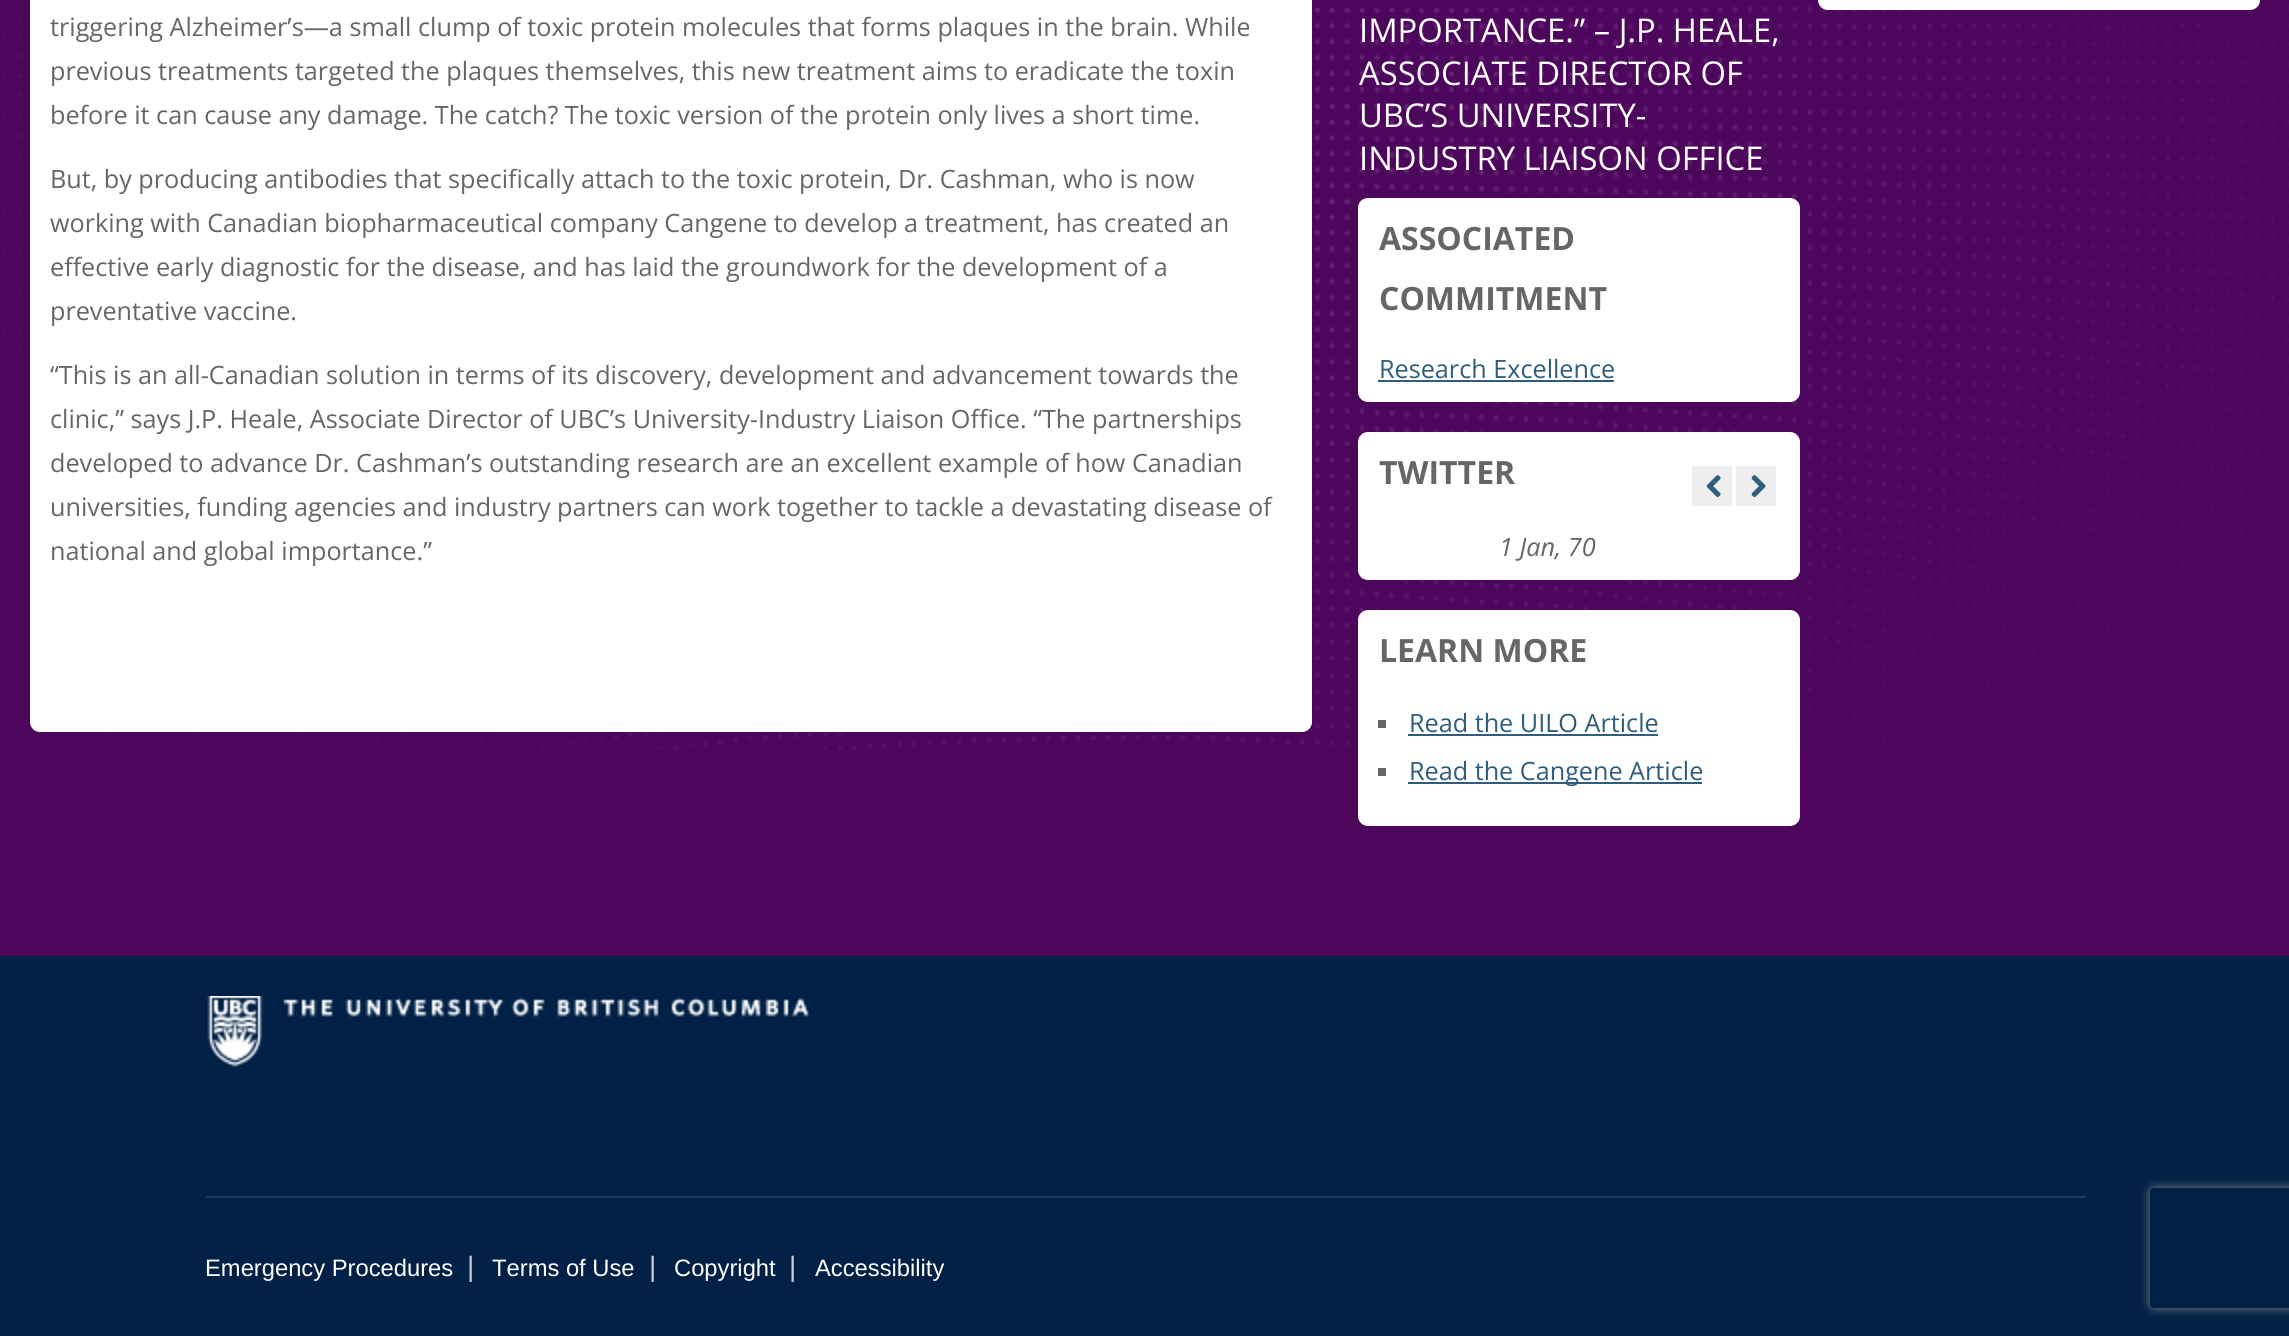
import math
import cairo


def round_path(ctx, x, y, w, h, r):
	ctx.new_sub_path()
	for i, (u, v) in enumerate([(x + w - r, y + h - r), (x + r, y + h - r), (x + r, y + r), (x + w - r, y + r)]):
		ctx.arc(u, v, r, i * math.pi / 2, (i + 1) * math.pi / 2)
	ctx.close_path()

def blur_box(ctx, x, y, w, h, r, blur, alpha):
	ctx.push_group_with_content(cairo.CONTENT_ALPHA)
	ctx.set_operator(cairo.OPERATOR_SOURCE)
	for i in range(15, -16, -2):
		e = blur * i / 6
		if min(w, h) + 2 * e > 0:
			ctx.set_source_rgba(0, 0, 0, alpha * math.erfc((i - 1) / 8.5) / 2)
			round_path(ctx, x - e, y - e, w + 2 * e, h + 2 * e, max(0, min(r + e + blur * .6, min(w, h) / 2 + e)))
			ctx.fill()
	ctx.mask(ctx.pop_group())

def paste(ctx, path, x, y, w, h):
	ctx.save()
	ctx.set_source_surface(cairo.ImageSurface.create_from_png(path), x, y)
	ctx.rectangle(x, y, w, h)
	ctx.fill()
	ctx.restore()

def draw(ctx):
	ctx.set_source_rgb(0.302, 0.024, 0.357)
	ctx.paint()
	paste(ctx, 'media/1.png', 3, 0, 2286, 750)
	ctx.set_source_rgb(1, 1, 1)
	round_path(ctx, 30, -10, 1282, 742, 10)
	ctx.fill()
	ctx.select_font_face('Open Sans')
	ctx.set_font_size(25.2)
	ctx.set_source_rgb(0.4, 0.4, 0.4)
	for x, y, s in [
		(50, 36, 'triggering Alzheimer’s—a small clump of toxic protein molecules that forms plaques in the brain. While'),
		(50, 80, 'previous treatments targeted the plaques themselves, this new treatment aims to eradicate the toxin'),
		(50, 124, 'before it can cause any damage. The catch? The toxic version of the protein only lives a short time.'),
		(50, 188, 'But, by producing antibodies that specifically attach to the toxic protein, Dr. Cashman, who is now'),
		(50, 232, 'working with Canadian biopharmaceutical company Cangene to develop a treatment, has created an'),
		(50, 276, 'effective early diagnostic for the disease, and has laid the groundwork for the development of a'),
		(50, 320, 'preventative vaccine.'),
		(50, 384, '“This is an all-Canadian solution in terms of its discovery, development and advancement towards the'),
		(50, 428, 'clinic,” says J.P. Heale, Associate Director of UBC’s University-Industry Liaison Office. “The partnerships'),
		(50, 472, 'developed to advance Dr. Cashman’s outstanding research are an excellent example of how Canadian'),
		(50, 516, 'universities, funding agencies and industry partners can work together to tackle a devastating disease of'),
		(50, 560, 'national and global importance.”'),
	]:
		ctx.move_to(x, y)
		ctx.show_text(s)
	ctx.set_source_rgb(1, 1, 1)
	round_path(ctx, 1818, -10, 442, 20, 10)
	ctx.fill()
	ctx.set_font_size(32.75)
	for x, y, s in [
		(1359, 42, 'IMPORTANCE.” – J.P. HEALE,'),
		(1359, 85, 'ASSOCIATE DIRECTOR OF'),
		(1359, 127, 'UBC’S UNIVERSITY-'),
		(1359, 170, 'INDUSTRY LIAISON OFFICE'),
	]:
		ctx.move_to(x, y)
		ctx.show_text(s)
	round_path(ctx, 1358, 198, 442, 204, 10)
	ctx.fill()
	ctx.select_font_face('Open Sans', cairo.FONT_SLANT_NORMAL, cairo.FONT_WEIGHT_BOLD)
	ctx.set_font_size(32)
	ctx.set_source_rgb(0.4, 0.4, 0.4)
	ctx.move_to(1379, 250)
	ctx.show_text('ASSOCIATED')
	ctx.move_to(1379, 310)
	ctx.show_text('COMMITMENT')
	ctx.select_font_face('Open Sans')
	ctx.set_font_size(25.2)
	ctx.set_source_rgb(0.184, 0.365, 0.486)
	ctx.move_to(1379, 378)
	ctx.show_text('Research Excellence')
	ctx.rectangle(1378, 380, 236, 2)
	ctx.fill()
	ctx.set_source_rgb(1, 1, 1)
	round_path(ctx, 1358, 432, 442, 148, 10)
	ctx.fill()
	ctx.select_font_face('Open Sans', cairo.FONT_SLANT_NORMAL, cairo.FONT_WEIGHT_BOLD)
	ctx.set_font_size(32)
	ctx.set_source_rgb(0.4, 0.4, 0.4)
	ctx.move_to(1379, 484)
	ctx.show_text('TWITTER')
	ctx.set_source_rgb(0.933, 0.933, 0.933)
	ctx.rectangle(1692, 466, 40, 40)
	ctx.fill()
	paste(ctx, 'media/2.png', 1706, 475, 15, 22)
	ctx.rectangle(1736, 466, 40, 40)
	ctx.fill()
	paste(ctx, 'media/3.png', 1751, 475, 15, 22)
	ctx.select_font_face('Open Sans', cairo.FONT_SLANT_ITALIC)
	ctx.set_font_size(25.2)
	ctx.set_source_rgb(0.4, 0.4, 0.4)
	ctx.move_to(1499, 556)
	ctx.show_text('1 Jan, 70')
	ctx.set_source_rgb(1, 1, 1)
	round_path(ctx, 1358, 610, 442, 216, 10)
	ctx.fill()
	ctx.select_font_face('Open Sans', cairo.FONT_SLANT_NORMAL, cairo.FONT_WEIGHT_BOLD)
	ctx.set_font_size(32)
	ctx.set_source_rgb(0.4, 0.4, 0.4)
	ctx.move_to(1379, 662)
	ctx.show_text('LEARN MORE')
	ctx.rectangle(1378, 720, 8, 8)
	ctx.fill()
	ctx.select_font_face('Open Sans')
	ctx.set_font_size(25.2)
	ctx.set_source_rgb(0.184, 0.365, 0.486)
	ctx.move_to(1409, 732)
	ctx.show_text('Read the UILO Article')
	ctx.rectangle(1408, 734, 250, 2)
	ctx.fill()
	ctx.set_source_rgb(0.4, 0.4, 0.4)
	ctx.rectangle(1378, 768, 8, 8)
	ctx.fill()
	ctx.set_source_rgb(0.184, 0.365, 0.486)
	ctx.rectangle(1408, 782, 294, 2)
	ctx.fill()
	ctx.move_to(1409, 780)
	ctx.show_text('Read the Cangene Article')
	ctx.set_source_rgb(0, 0.129, 0.271)
	ctx.rectangle(0, 956, 2289, 380)
	ctx.fill()
	paste(ctx, 'media/4.png', 207, 996, 602, 71)
	ctx.set_source_rgb(0.122, 0.22, 0.373)
	ctx.rectangle(206, 1196, 1880, 2)
	ctx.fill()
	ctx.select_font_face('Liberation Sans')
	ctx.set_font_size(23.75)
	ctx.set_source_rgb(1, 1, 1)
	ctx.move_to(205, 1276)
	ctx.show_text('Emergency Procedures')
	ctx.set_font_size(28)
	ctx.set_source_rgb(0.8, 0.8, 0.8)
	ctx.move_to(467, 1276)
	ctx.show_text('|')
	ctx.set_font_size(23.75)
	ctx.set_source_rgb(1, 1, 1)
	ctx.move_to(492, 1276)
	ctx.show_text('Terms of Use')
	ctx.set_font_size(28)
	ctx.set_source_rgb(0.8, 0.8, 0.8)
	ctx.move_to(649, 1276)
	ctx.show_text('|')
	ctx.set_font_size(23.75)
	ctx.set_source_rgb(1, 1, 1)
	ctx.move_to(674, 1276)
	ctx.show_text('Copyright')
	ctx.set_font_size(28)
	ctx.set_source_rgb(0.8, 0.8, 0.8)
	ctx.move_to(789, 1276)
	ctx.show_text('|')
	ctx.set_font_size(23.75)
	ctx.set_source_rgb(1, 1, 1)
	ctx.move_to(815, 1276)
	ctx.show_text('Accessibility')
	ctx.save()
	ctx.set_fill_rule(cairo.FILL_RULE_EVEN_ODD)
	ctx.new_path()
	ctx.move_to(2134, 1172)
	ctx.line_to(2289, 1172)
	ctx.line_to(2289, 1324)
	ctx.line_to(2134, 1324)
	ctx.close_path()
	ctx.move_to(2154, 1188)
	ctx.line_to(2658, 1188)
	ctx.curve_to(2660, 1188, 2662, 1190, 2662, 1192)
	ctx.line_to(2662, 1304)
	ctx.curve_to(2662, 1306, 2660, 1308, 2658, 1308)
	ctx.line_to(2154, 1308)
	ctx.curve_to(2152, 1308, 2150, 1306, 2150, 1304)
	ctx.line_to(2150, 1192)
	ctx.curve_to(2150, 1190, 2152, 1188, 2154, 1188)
	ctx.close_path()
	ctx.clip()
	ctx.set_source_rgb(0.502, 0.502, 0.502)
	blur_box(ctx, 2150, 1188, 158, 120, 4, 5, 1)
	ctx.restore()


surface = cairo.ImageSurface(cairo.FORMAT_RGB24, 2289, 1336)
ctx = cairo.Context(surface)
options = cairo.FontOptions()
options.set_hint_metrics(cairo.HINT_METRICS_OFF)
options.set_hint_style(cairo.HINT_STYLE_NONE)
ctx.set_font_options(options)
ctx.set_miter_limit(4)
draw(ctx)
surface.write_to_png('image.png')
